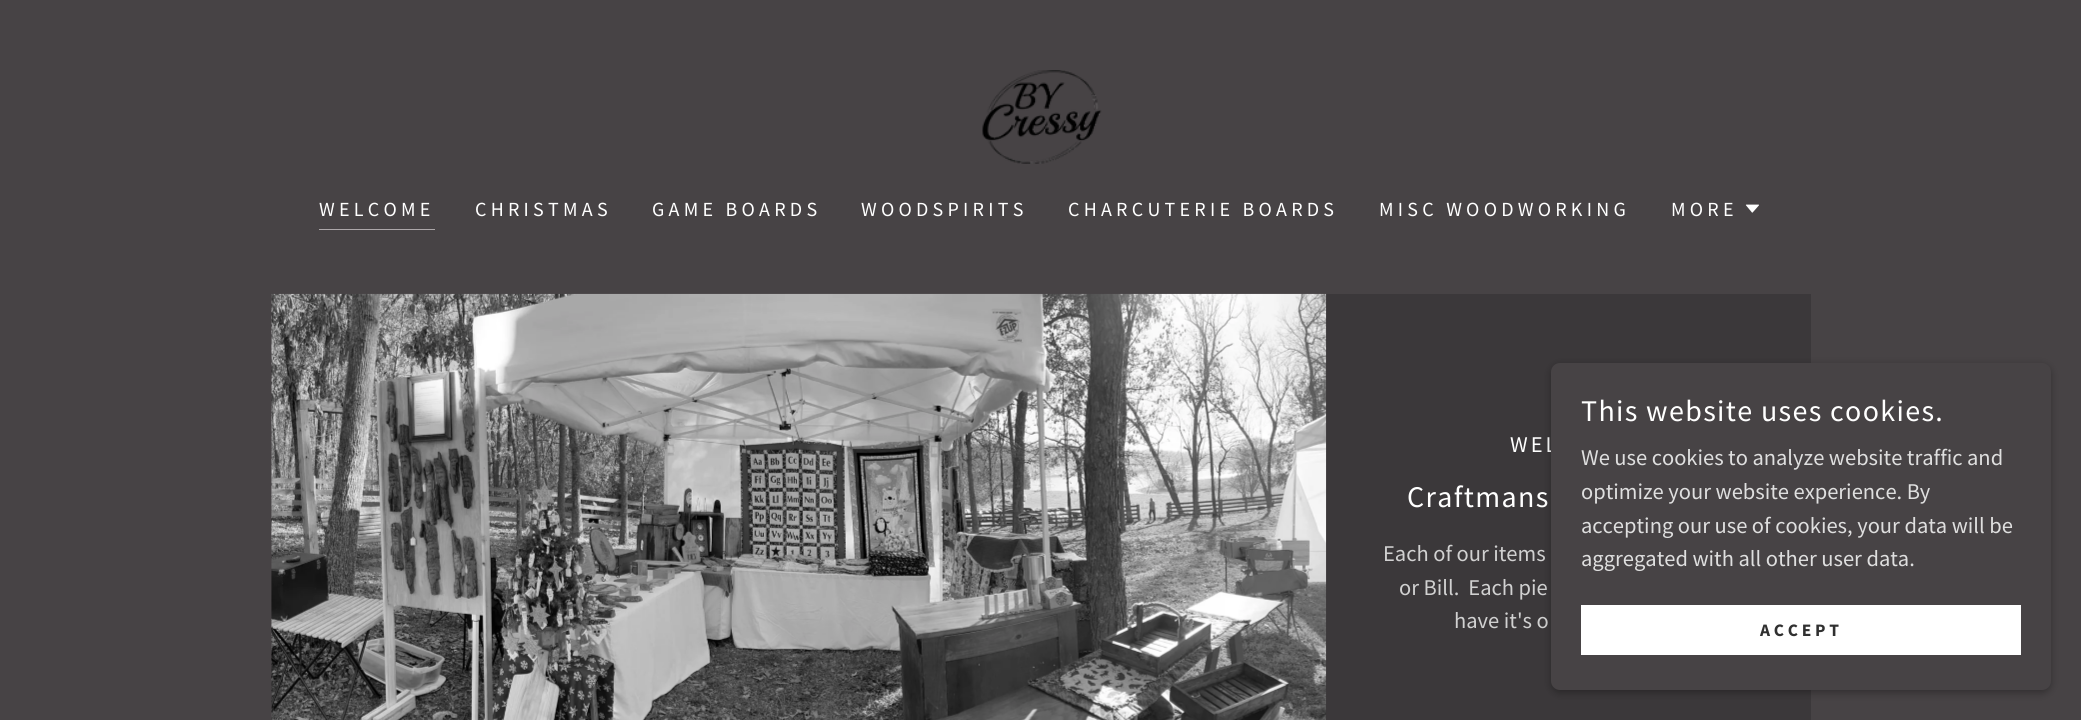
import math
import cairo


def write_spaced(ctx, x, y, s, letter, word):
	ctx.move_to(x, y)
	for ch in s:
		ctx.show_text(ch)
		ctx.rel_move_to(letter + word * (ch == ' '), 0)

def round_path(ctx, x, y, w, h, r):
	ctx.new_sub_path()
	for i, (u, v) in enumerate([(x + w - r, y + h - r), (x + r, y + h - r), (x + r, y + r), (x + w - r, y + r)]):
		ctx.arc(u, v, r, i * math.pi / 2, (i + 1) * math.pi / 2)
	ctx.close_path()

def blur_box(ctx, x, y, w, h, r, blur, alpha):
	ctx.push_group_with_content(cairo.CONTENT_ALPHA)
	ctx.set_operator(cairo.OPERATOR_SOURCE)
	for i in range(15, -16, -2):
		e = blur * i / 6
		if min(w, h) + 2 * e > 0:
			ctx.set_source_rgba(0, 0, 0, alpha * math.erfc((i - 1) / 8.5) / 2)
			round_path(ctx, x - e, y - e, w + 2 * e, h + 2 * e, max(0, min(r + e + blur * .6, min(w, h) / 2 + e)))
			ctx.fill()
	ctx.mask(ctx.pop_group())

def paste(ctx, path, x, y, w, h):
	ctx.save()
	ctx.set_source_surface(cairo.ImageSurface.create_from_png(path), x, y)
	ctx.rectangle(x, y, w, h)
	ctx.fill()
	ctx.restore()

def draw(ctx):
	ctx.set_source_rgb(0.278, 0.263, 0.271)
	ctx.paint()
	paste(ctx, 'media/1.png', 982, 70, 120, 94)
	ctx.set_source_rgb(0.675, 0.655, 0.663)
	ctx.rectangle(319, 229, 116, 1)
	ctx.fill()
	ctx.select_font_face('Source Sans Pro')
	ctx.set_font_size(20)
	ctx.set_source_rgb(1, 1, 1)
	for x, y, s in [
		(319, 216, 'WELCOME'),
		(475, 216, 'CHRISTMAS'),
		(652, 216, 'GAME BOARDS'),
		(861, 216, 'WOODSPIRITS'),
		(1068, 216, 'CHARCUTERIE BOARDS'),
		(1379, 216, 'MISC WOODWORKING'),
		(1671, 216, 'MORE'),
	]:
		write_spaced(ctx, x, y, s, 4.25, 0)
	paste(ctx, 'media/2.png', 1745, 204, 14, 9)
	ctx.set_source_rgb(0.231, 0.22, 0.227)
	ctx.rectangle(1326, 294, 485, 426)
	ctx.fill()
	paste(ctx, 'media/3.png', 271, 293, 1056, 427)
	ctx.set_font_size(22.5)
	ctx.set_source_rgb(1, 1, 1)
	write_spaced(ctx, 1510, 452, 'WEL', 3, 0)
	ctx.set_font_size(30)
	write_spaced(ctx, 1407, 507, 'Craftmans', 1.35, 0)
	ctx.set_font_size(22.5)
	ctx.set_source_rgb(0.82, 0.82, 0.82)
	for x, y, s in [
		(1383, 561, 'Each of our items'),
		(1399, 595, 'or Bill.  Each pie'),
		(1454, 628, 'have it\'s o'),
	]:
		ctx.move_to(x, y)
		ctx.show_text(s)
	ctx.set_source_rgb(0, 0, 0)
	blur_box(ctx, 1551, 365, 500, 328, 9, 4, 0.3)
	ctx.set_source_rgb(0.278, 0.263, 0.271)
	round_path(ctx, 1551, 363, 500, 327, 9)
	ctx.fill()
	ctx.set_font_size(30)
	ctx.set_source_rgb(1, 1, 1)
	write_spaced(ctx, 1581, 421, 'This website uses cookies.', 1.35, 0)
	ctx.set_font_size(22.5)
	ctx.set_source_rgb(0.875, 0.875, 0.875)
	for x, y, s in [
		(1581, 465, 'We use cookies to analyze website traffic and'),
		(1581, 499, 'optimize your website experience. By'),
		(1581, 533, 'accepting our use of cookies, your data will be'),
		(1581, 566, 'aggregated with all other user data.'),
	]:
		ctx.move_to(x, y)
		ctx.show_text(s)
	ctx.set_source_rgb(1, 1, 1)
	ctx.rectangle(1581, 605, 440, 50)
	ctx.fill()
	ctx.select_font_face('Source Sans Pro', cairo.FONT_SLANT_NORMAL, cairo.FONT_WEIGHT_BOLD)
	ctx.set_font_size(17.5)
	ctx.set_source_rgb(0.188, 0.188, 0.188)
	write_spaced(ctx, 1760, 636, 'ACCEPT', 3.75, 0)


surface = cairo.ImageSurface(cairo.FORMAT_RGB24, 2081, 720)
ctx = cairo.Context(surface)
options = cairo.FontOptions()
options.set_hint_metrics(cairo.HINT_METRICS_OFF)
options.set_hint_style(cairo.HINT_STYLE_NONE)
ctx.set_font_options(options)
ctx.set_miter_limit(4)
draw(ctx)
surface.write_to_png('image.png')
